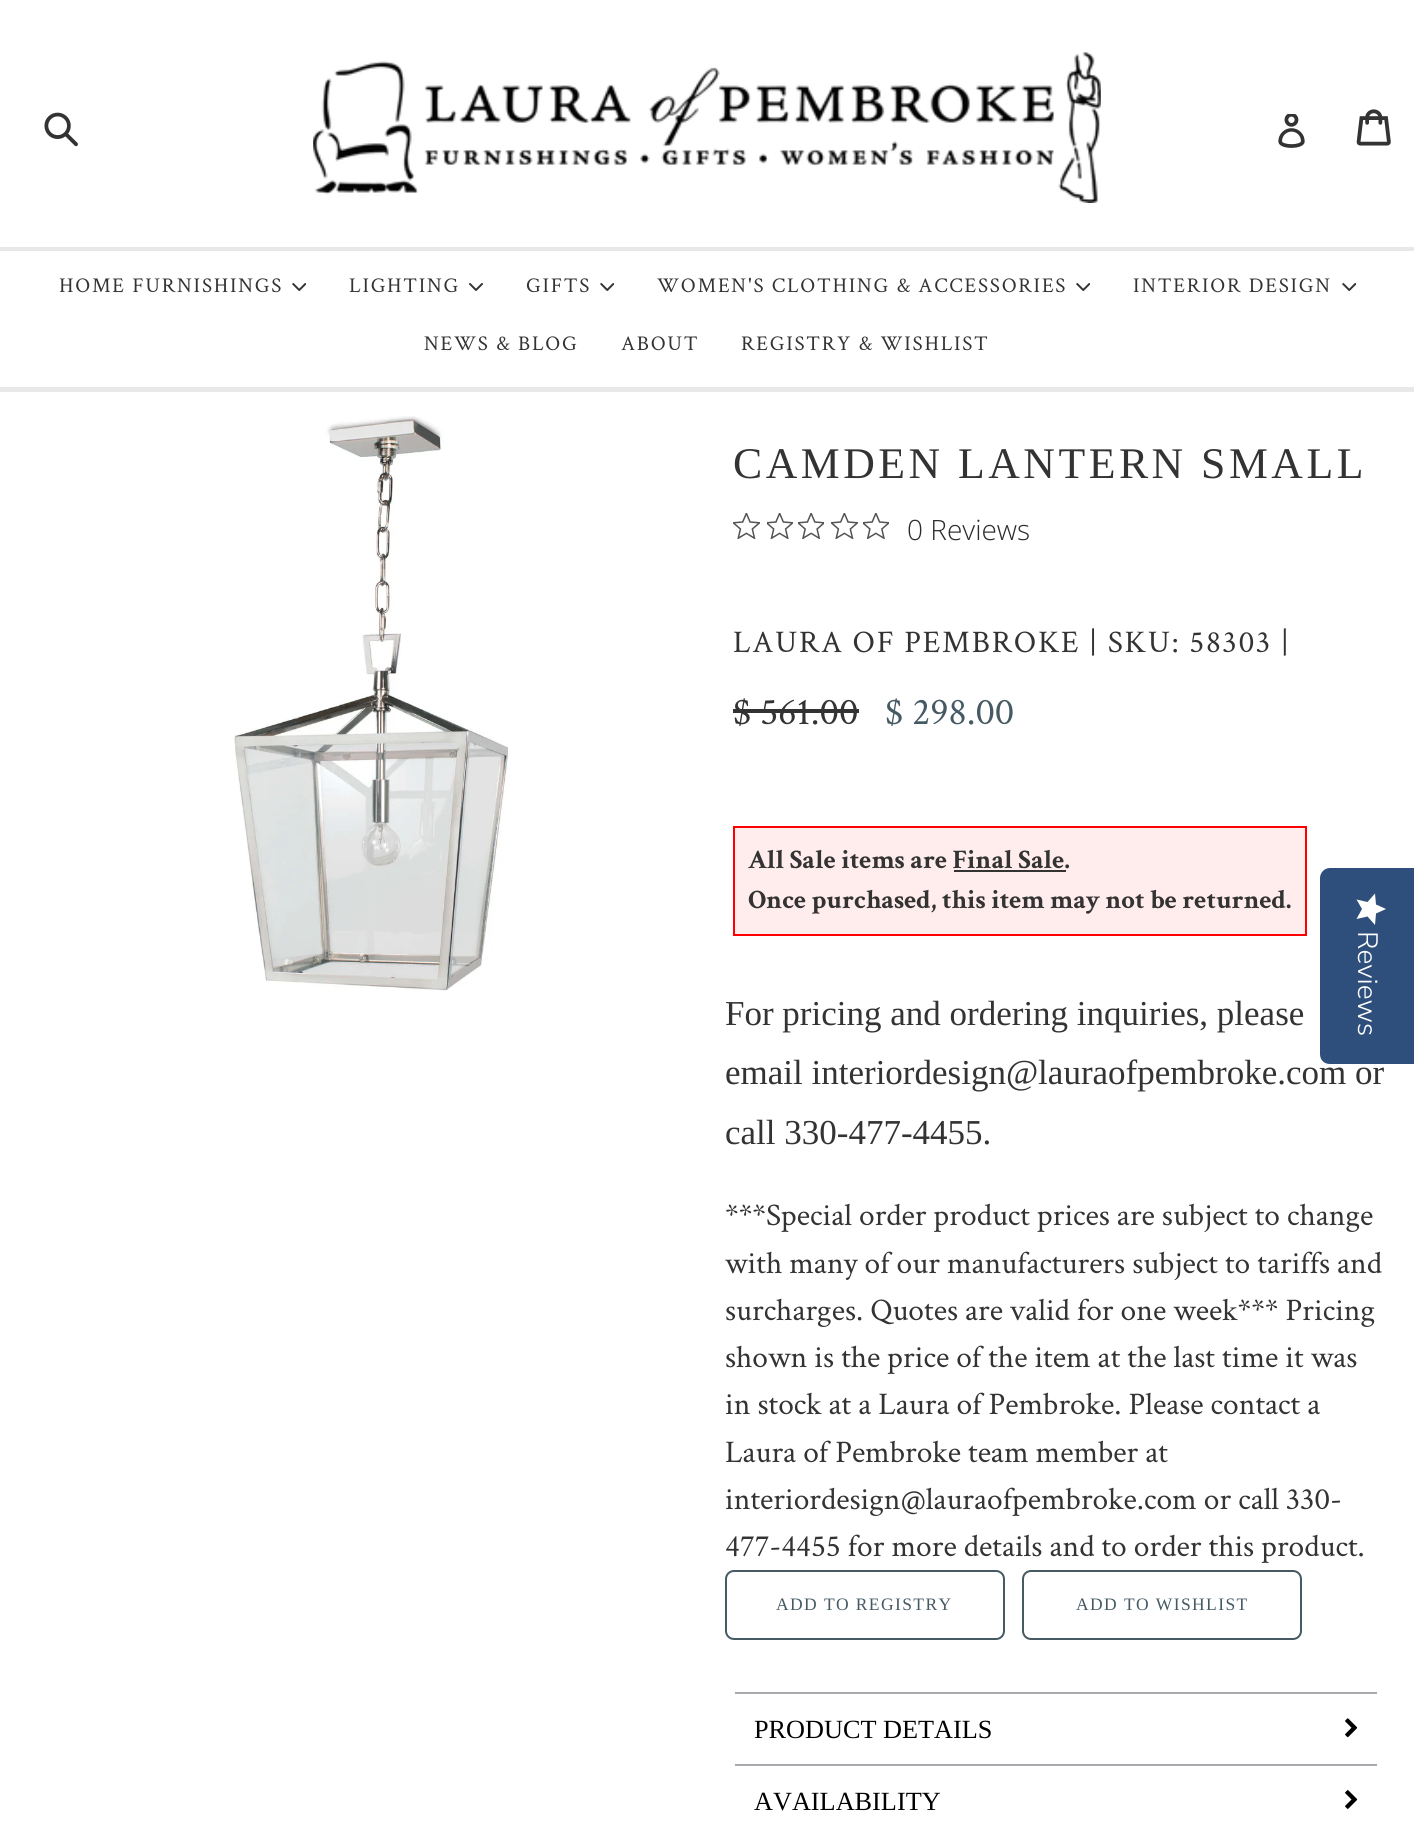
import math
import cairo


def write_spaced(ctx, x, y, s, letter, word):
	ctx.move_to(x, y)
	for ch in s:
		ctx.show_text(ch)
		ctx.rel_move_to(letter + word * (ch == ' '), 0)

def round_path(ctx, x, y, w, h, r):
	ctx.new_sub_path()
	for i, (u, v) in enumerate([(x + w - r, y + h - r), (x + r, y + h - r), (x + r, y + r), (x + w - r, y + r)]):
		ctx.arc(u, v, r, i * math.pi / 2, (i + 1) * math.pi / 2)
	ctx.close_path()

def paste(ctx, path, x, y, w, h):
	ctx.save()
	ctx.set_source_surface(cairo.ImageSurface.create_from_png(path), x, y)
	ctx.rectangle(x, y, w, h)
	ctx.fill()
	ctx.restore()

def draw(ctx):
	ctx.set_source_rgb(1, 1, 1)
	ctx.paint()
	paste(ctx, 'media/1.png', 44, 112, 34, 35)
	paste(ctx, 'media/2.png', 313, 52, 788, 151)
	paste(ctx, 'media/3.png', 1278, 114, 27, 34)
	paste(ctx, 'media/4.png', 1356, 109, 35, 37)
	ctx.set_source_rgb(0.91, 0.914, 0.922)
	ctx.rectangle(0, 391, 1414, 1)
	ctx.fill()
	ctx.set_source_rgb(0.914, 0.91, 0.91)
	ctx.rectangle(0, 247, 1414, 4)
	ctx.rectangle(0, 387, 1414, 4)
	ctx.fill()
	ctx.select_font_face('Crimson Text')
	ctx.set_font_size(21)
	ctx.set_source_rgb(0.2, 0.2, 0.2)
	write_spaced(ctx, 59, 292, 'HOME FURNISHINGS', 1.75, 0)
	paste(ctx, 'media/5.png', 292, 283, 14, 8)
	write_spaced(ctx, 349, 292, 'LIGHTING', 1.75, 0)
	paste(ctx, 'media/6.png', 469, 283, 14, 8)
	write_spaced(ctx, 526, 292, 'GIFTS', 1.75, 0)
	paste(ctx, 'media/5.png', 600, 283, 14, 8)
	write_spaced(ctx, 657, 292, 'WOMEN\'S CLOTHING & ACCESSORIES', 1.75, 0)
	paste(ctx, 'media/5.png', 1076, 283, 14, 8)
	write_spaced(ctx, 1133, 292, 'INTERIOR DESIGN', 1.75, 0)
	paste(ctx, 'media/5.png', 1342, 283, 14, 8)
	for x, y, s in [
		(424, 350, 'NEWS & BLOG'),
		(621, 350, 'ABOUT'),
		(741, 350, 'REGISTRY & WISHLIST'),
	]:
		write_spaced(ctx, x, y, s, 1.75, 0)
	paste(ctx, 'media/7.png', 234, 416, 275, 575)
	ctx.select_font_face('Liberation Serif')
	ctx.set_font_size(43.75)
	write_spaced(ctx, 733, 478, 'CAMDEN LANTERN SMALL', 3.5, 0)
	paste(ctx, 'media/8.png', 733, 513, 27, 26)
	paste(ctx, 'media/9.png', 767, 513, 26, 26)
	paste(ctx, 'media/10.png', 798, 513, 26, 26)
	paste(ctx, 'media/8.png', 831, 513, 27, 26)
	paste(ctx, 'media/11.png', 863, 513, 26, 26)
	ctx.select_font_face('Open Sans Light')
	ctx.set_font_size(28)
	ctx.set_source_rgb(0.173, 0.173, 0.173)
	ctx.move_to(907, 540)
	ctx.show_text('0 Reviews')
	ctx.select_font_face('Crimson Text')
	ctx.set_font_size(31.5)
	ctx.set_source_rgb(0.2, 0.2, 0.2)
	write_spaced(ctx, 733, 652, 'LAURA OF PEMBROKE | SKU: 58303 |', 1.75, 0)
	ctx.set_font_size(38.5)
	ctx.move_to(733, 724)
	ctx.show_text('$ 561.00')
	ctx.rectangle(733, 709, 126, 4)
	ctx.fill()
	ctx.set_source_rgb(0.275, 0.353, 0.388)
	ctx.move_to(885, 724)
	ctx.show_text('$ 298.00')
	ctx.set_source_rgb(1, 0.922, 0.922)
	ctx.rectangle(734, 827, 572, 108)
	ctx.fill_preserve()
	ctx.set_source_rgb(1, 0, 0)
	ctx.stroke()
	ctx.select_font_face('Crimson Text', cairo.FONT_SLANT_NORMAL, cairo.FONT_WEIGHT_BOLD)
	ctx.set_font_size(26.75)
	ctx.set_source_rgb(0.2, 0.2, 0.2)
	ctx.move_to(748, 868)
	ctx.show_text('All Sale items are Final Sale.')
	ctx.rectangle(954, 870, 112, 2)
	ctx.fill()
	ctx.move_to(748, 908)
	ctx.show_text('Once purchased, this item may not be returned.')
	ctx.select_font_face('Liberation Serif')
	ctx.set_font_size(35)
	for x, y, s in [
		(725, 1025, 'For pricing and ordering inquiries, please'),
		(725, 1084, 'email interiordesign@lauraofpembroke.com or'),
		(725, 1144, 'call 330-477-4455.'),
	]:
		ctx.move_to(x, y)
		ctx.show_text(s)
	ctx.select_font_face('Crimson Text')
	ctx.set_font_size(31.5)
	for x, y, s in [
		(725, 1225, '***Special order product prices are subject to change'),
		(725, 1273, 'with many of our manufacturers subject to tariffs and'),
		(725, 1320, 'surcharges. Quotes are valid for one week*** Pricing'),
		(725, 1367, 'shown is the price of the item at the last time it was'),
		(725, 1414, 'in stock at a Laura of Pembroke. Please contact a'),
		(725, 1462, 'Laura of Pembroke team member at'),
		(725, 1509, 'interiordesign@lauraofpembroke.com or call 330-'),
		(725, 1556, '477-4455 for more details and to order this product.'),
	]:
		ctx.move_to(x, y)
		ctx.show_text(s)
	round_path(ctx, 726, 1571, 278, 68, 8)
	ctx.set_source_rgb(0.275, 0.353, 0.388)
	ctx.stroke()
	ctx.select_font_face('Liberation Serif')
	ctx.set_font_size(17.5)
	write_spaced(ctx, 776, 1610, 'ADD TO REGISTRY', 1.4, 0)
	round_path(ctx, 1023, 1571, 278, 68, 8)
	ctx.stroke()
	write_spaced(ctx, 1076, 1610, 'ADD TO WISHLIST', 1.4, 0)
	ctx.set_source_rgb(0.655, 0.663, 0.675)
	ctx.rectangle(733, 1692, 646, 2)
	ctx.fill()
	ctx.set_source_rgb(1, 1, 1)
	ctx.rectangle(1377, 1692, 2, 2)
	ctx.rectangle(733, 1692, 2, 2)
	ctx.fill()
	ctx.set_font_size(26.25)
	ctx.set_source_rgb(0, 0, 0)
	ctx.move_to(754, 1738)
	ctx.show_text('PRODUCT DETAILS')
	paste(ctx, 'media/12.png', 1345, 1718, 13, 20)
	ctx.set_source_rgb(0.655, 0.663, 0.675)
	ctx.rectangle(733, 1764, 646, 2)
	ctx.fill()
	ctx.set_source_rgb(1, 1, 1)
	ctx.rectangle(1377, 1764, 2, 2)
	ctx.rectangle(733, 1764, 2, 2)
	ctx.fill()
	ctx.set_source_rgb(0, 0, 0)
	ctx.move_to(754, 1810)
	ctx.show_text('AVAILABILITY')
	paste(ctx, 'media/13.png', 1345, 1790, 13, 19)
	ctx.set_source_rgb(0.18, 0.31, 0.486)
	ctx.new_path()
	ctx.move_to(1414, 868)
	ctx.line_to(1414, 1064)
	ctx.line_to(1330, 1064)
	ctx.curve_to(1324, 1064, 1320, 1060, 1320, 1054)
	ctx.line_to(1320, 878)
	ctx.curve_to(1320, 873, 1324, 868, 1330, 868)
	ctx.close_path()
	ctx.fill()
	gradient = cairo.LinearGradient(1386, 893, 1386, 925)
	gradient.add_color_stop_rgba(1, 1, 1, 1, 1)
	gradient.add_color_stop_rgba(1, 0.918, 0.918, 0.918, 1)
	ctx.set_source(gradient)
	ctx.new_path()
	ctx.move_to(1362, 909)
	ctx.line_to(1356.5, 919)
	ctx.line_to(1367.5, 916.5)
	ctx.line_to(1375, 925)
	ctx.line_to(1376, 913.5)
	ctx.line_to(1386, 909)
	ctx.line_to(1376, 904.5)
	ctx.line_to(1375, 893.5)
	ctx.line_to(1367.5, 902)
	ctx.line_to(1356.5, 899.5)
	ctx.close_path()
	ctx.fill()
	ctx.select_font_face('Nunito Sans Light')
	ctx.set_font_size(28)
	ctx.set_source_rgb(1, 1, 1)
	ctx.save()
	ctx.translate(1358, 931)
	ctx.rotate(90 * math.pi / 180)
	ctx.move_to(0, 0)
	ctx.show_text('Reviews')
	ctx.restore()


surface = cairo.ImageSurface(cairo.FORMAT_RGB24, 1414, 1830)
ctx = cairo.Context(surface)
options = cairo.FontOptions()
options.set_hint_metrics(cairo.HINT_METRICS_OFF)
options.set_hint_style(cairo.HINT_STYLE_NONE)
ctx.set_font_options(options)
ctx.set_miter_limit(4)
draw(ctx)
surface.write_to_png('image.png')
